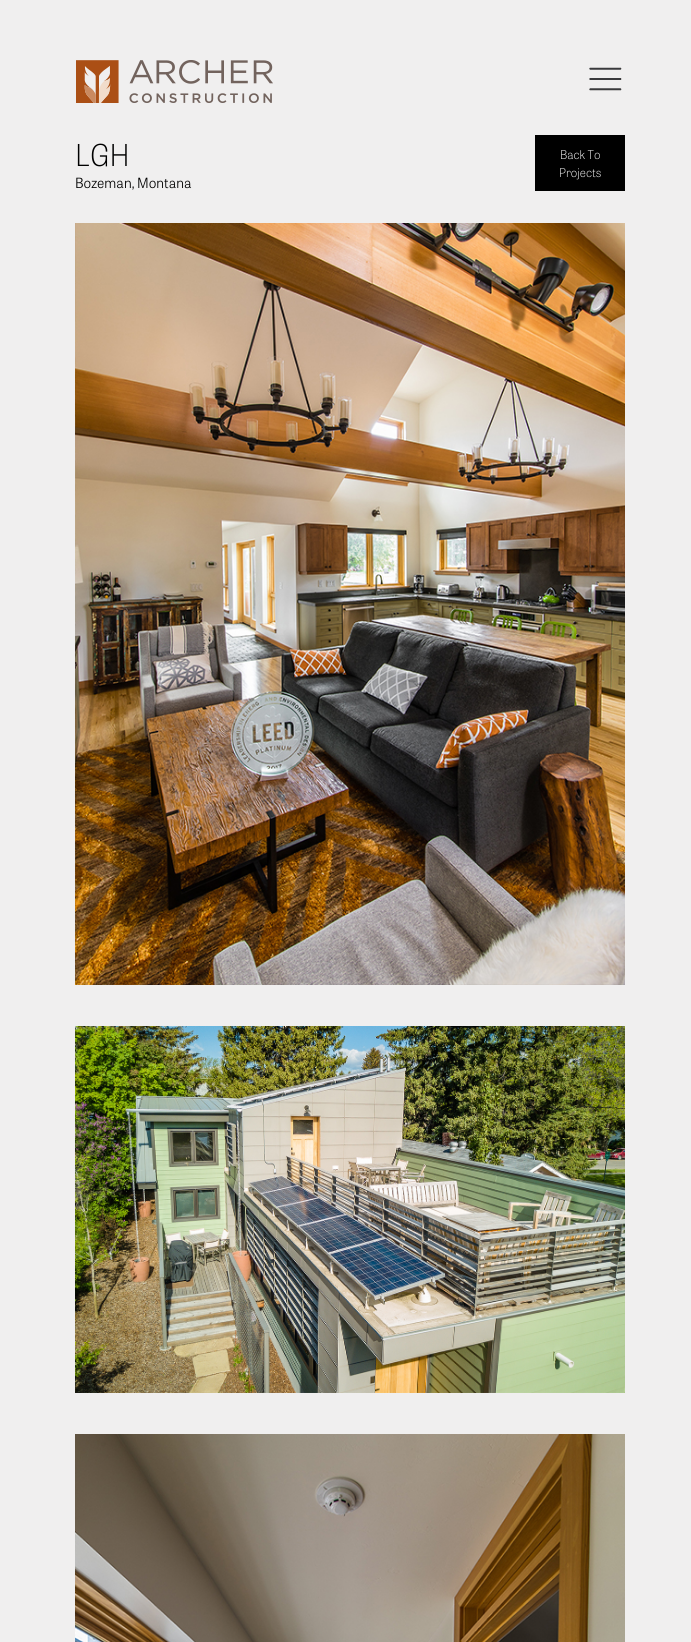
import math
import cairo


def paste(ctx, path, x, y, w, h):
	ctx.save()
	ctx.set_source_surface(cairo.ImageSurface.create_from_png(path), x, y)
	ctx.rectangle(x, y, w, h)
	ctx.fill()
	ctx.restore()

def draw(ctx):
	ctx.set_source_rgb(0.941, 0.937, 0.937)
	ctx.paint()
	paste(ctx, 'media/1.png', 76, 60, 197, 43)
	paste(ctx, 'media/2.png', 589, 67, 33, 24)
	ctx.select_font_face('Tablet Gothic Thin')
	ctx.set_font_size(30)
	ctx.set_source_rgb(0, 0, 0)
	ctx.move_to(75, 166)
	ctx.show_text('LGH')
	ctx.rectangle(535, 135, 90, 56)
	ctx.fill()
	ctx.set_font_size(12)
	ctx.set_source_rgb(1, 1, 1)
	ctx.move_to(560, 159)
	ctx.show_text('Back To')
	ctx.move_to(559, 177)
	ctx.show_text('Projects')
	ctx.select_font_face('Tablet Gothic Light')
	ctx.set_font_size(14)
	ctx.set_source_rgb(0, 0, 0)
	ctx.move_to(75, 188)
	ctx.show_text('Bozeman, Montana')
	paste(ctx, 'media/3.png', 75, 223, 550, 762)
	paste(ctx, 'media/4.png', 75, 1026, 550, 367)
	paste(ctx, 'media/5.png', 75, 1434, 550, 208)


surface = cairo.ImageSurface(cairo.FORMAT_RGB24, 691, 1642)
ctx = cairo.Context(surface)
options = cairo.FontOptions()
options.set_hint_metrics(cairo.HINT_METRICS_OFF)
options.set_hint_style(cairo.HINT_STYLE_NONE)
ctx.set_font_options(options)
ctx.set_miter_limit(4)
draw(ctx)
surface.write_to_png('image.png')
